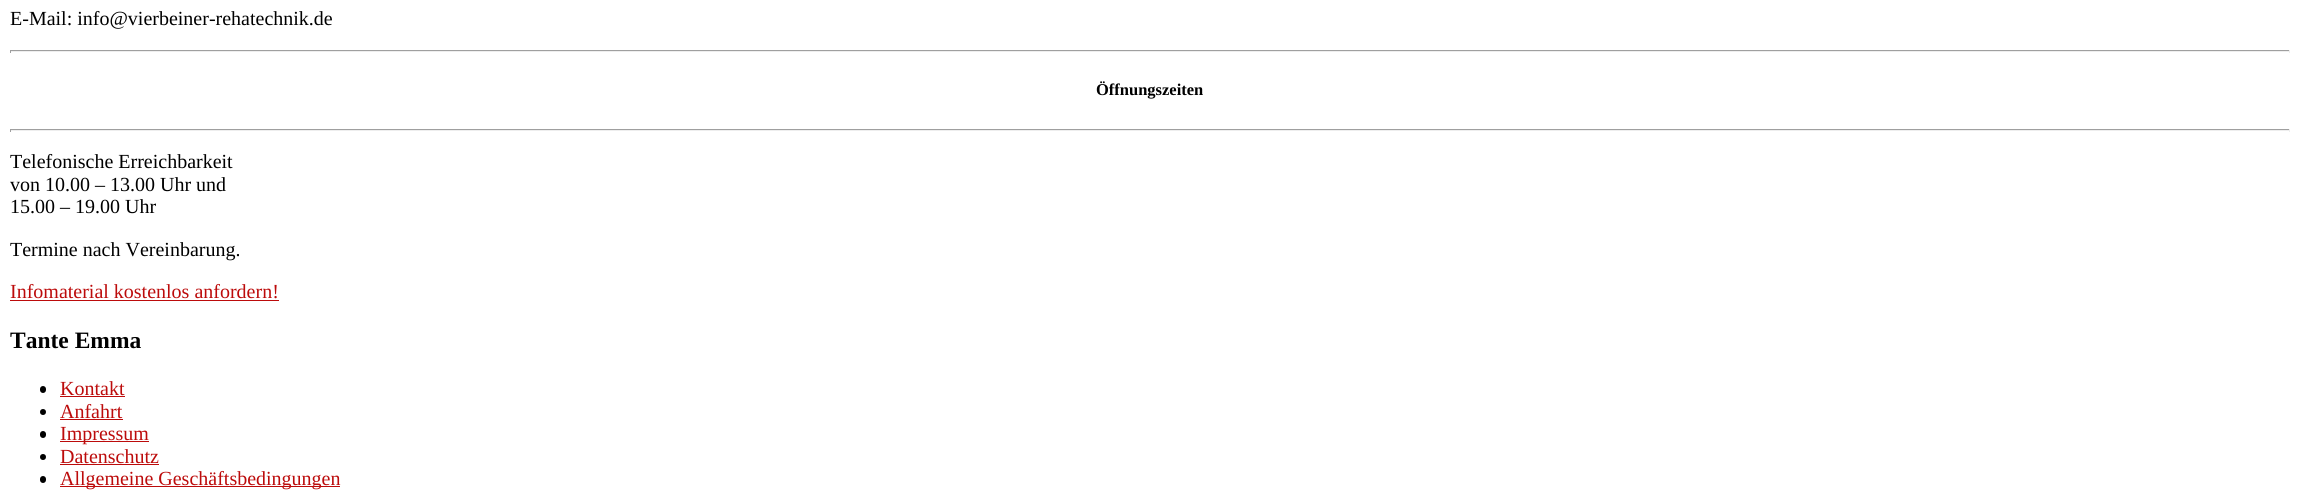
import math
import cairo


def round_path(ctx, x, y, w, h, r):
	ctx.new_sub_path()
	for i, (u, v) in enumerate([(x + w - r, y + h - r), (x + r, y + h - r), (x + r, y + r), (x + w - r, y + r)]):
		ctx.arc(u, v, r, i * math.pi / 2, (i + 1) * math.pi / 2)
	ctx.close_path()

def draw(ctx):
	ctx.set_source_rgb(1, 1, 1)
	ctx.paint()
	ctx.select_font_face('Liberation Serif')
	ctx.set_font_size(20)
	ctx.set_source_rgb(0, 0, 0)
	ctx.move_to(10, 25)
	ctx.show_text('E-Mail: info@vierbeiner-rehatechnik.de')
	ctx.set_source_rgb(0.624, 0.624, 0.624)
	ctx.rectangle(10, 50, 2280, 1)
	ctx.fill()
	ctx.set_source_rgb(0.933, 0.933, 0.933)
	ctx.rectangle(2289, 50, 1, 3)
	ctx.rectangle(10, 51, 2280, 1)
	ctx.fill()
	ctx.set_source_rgb(0.624, 0.624, 0.624)
	ctx.rectangle(10, 50, 1, 3)
	ctx.fill()
	ctx.select_font_face('Liberation Serif', cairo.FONT_SLANT_NORMAL, cairo.FONT_WEIGHT_BOLD)
	ctx.set_font_size(16.5)
	ctx.set_source_rgb(0, 0, 0)
	ctx.move_to(1096, 95)
	ctx.show_text('Öffnungszeiten')
	ctx.set_source_rgb(0.624, 0.624, 0.624)
	ctx.rectangle(10, 129, 2280, 1)
	ctx.fill()
	ctx.set_source_rgb(0.933, 0.933, 0.933)
	ctx.rectangle(2289, 129, 1, 3)
	ctx.rectangle(10, 130, 2280, 1)
	ctx.fill()
	ctx.set_source_rgb(0.624, 0.624, 0.624)
	ctx.rectangle(10, 129, 1, 3)
	ctx.fill()
	ctx.select_font_face('Liberation Serif')
	ctx.set_font_size(20)
	ctx.set_source_rgb(0, 0, 0)
	for x, y, s in [
		(10, 168, 'Telefonische Erreichbarkeit'),
		(10, 191, 'von 10.00 – 13.00 Uhr und'),
		(10, 213, '15.00 – 19.00 Uhr'),
		(10, 256, 'Termine nach Vereinbarung.'),
	]:
		ctx.move_to(x, y)
		ctx.show_text(s)
	ctx.set_source_rgb(0.737, 0.043, 0.043)
	ctx.move_to(10, 298)
	ctx.show_text('Infomaterial kostenlos anfordern!')
	ctx.rectangle(10, 300, 269, 1)
	ctx.fill()
	ctx.select_font_face('Liberation Serif', cairo.FONT_SLANT_NORMAL, cairo.FONT_WEIGHT_BOLD)
	ctx.set_font_size(23.5)
	ctx.set_source_rgb(0, 0, 0)
	ctx.move_to(10, 348)
	ctx.show_text('Tante Emma')
	round_path(ctx, 40, 386, 6, 7, 3)
	ctx.fill()
	ctx.select_font_face('Liberation Serif')
	ctx.set_font_size(20)
	ctx.set_source_rgb(0.737, 0.043, 0.043)
	ctx.move_to(60, 395)
	ctx.show_text('Kontakt')
	ctx.rectangle(60, 396, 65, 1)
	ctx.fill()
	ctx.set_source_rgb(0, 0, 0)
	ctx.arc(43, 412, 3, 0, 2 * math.pi)
	ctx.fill()
	ctx.set_source_rgb(0.737, 0.043, 0.043)
	ctx.move_to(60, 418)
	ctx.show_text('Anfahrt')
	ctx.rectangle(60, 419, 63, 1)
	ctx.fill()
	ctx.set_source_rgb(0, 0, 0)
	round_path(ctx, 40, 431, 6, 7, 3)
	ctx.fill()
	ctx.set_source_rgb(0.737, 0.043, 0.043)
	ctx.rectangle(60, 441, 89, 1)
	ctx.fill()
	ctx.move_to(60, 440)
	ctx.show_text('Impressum')
	ctx.set_source_rgb(0, 0, 0)
	ctx.new_path()
	ctx.arc(43, 457, 3, 0, 2 * math.pi)
	ctx.fill()
	ctx.set_source_rgb(0.737, 0.043, 0.043)
	ctx.move_to(60, 463)
	ctx.show_text('Datenschutz')
	ctx.rectangle(60, 464, 99, 1)
	ctx.fill()
	ctx.set_source_rgb(0, 0, 0)
	round_path(ctx, 40, 476, 6, 7, 3)
	ctx.fill()
	ctx.set_source_rgb(0.737, 0.043, 0.043)
	ctx.rectangle(60, 486, 280, 1)
	ctx.fill()
	ctx.move_to(60, 485)
	ctx.show_text('Allgemeine Geschäftsbedingungen')


surface = cairo.ImageSurface(cairo.FORMAT_RGB24, 2299, 503)
ctx = cairo.Context(surface)
options = cairo.FontOptions()
options.set_hint_metrics(cairo.HINT_METRICS_OFF)
options.set_hint_style(cairo.HINT_STYLE_NONE)
ctx.set_font_options(options)
ctx.set_miter_limit(4)
draw(ctx)
surface.write_to_png('image.png')
